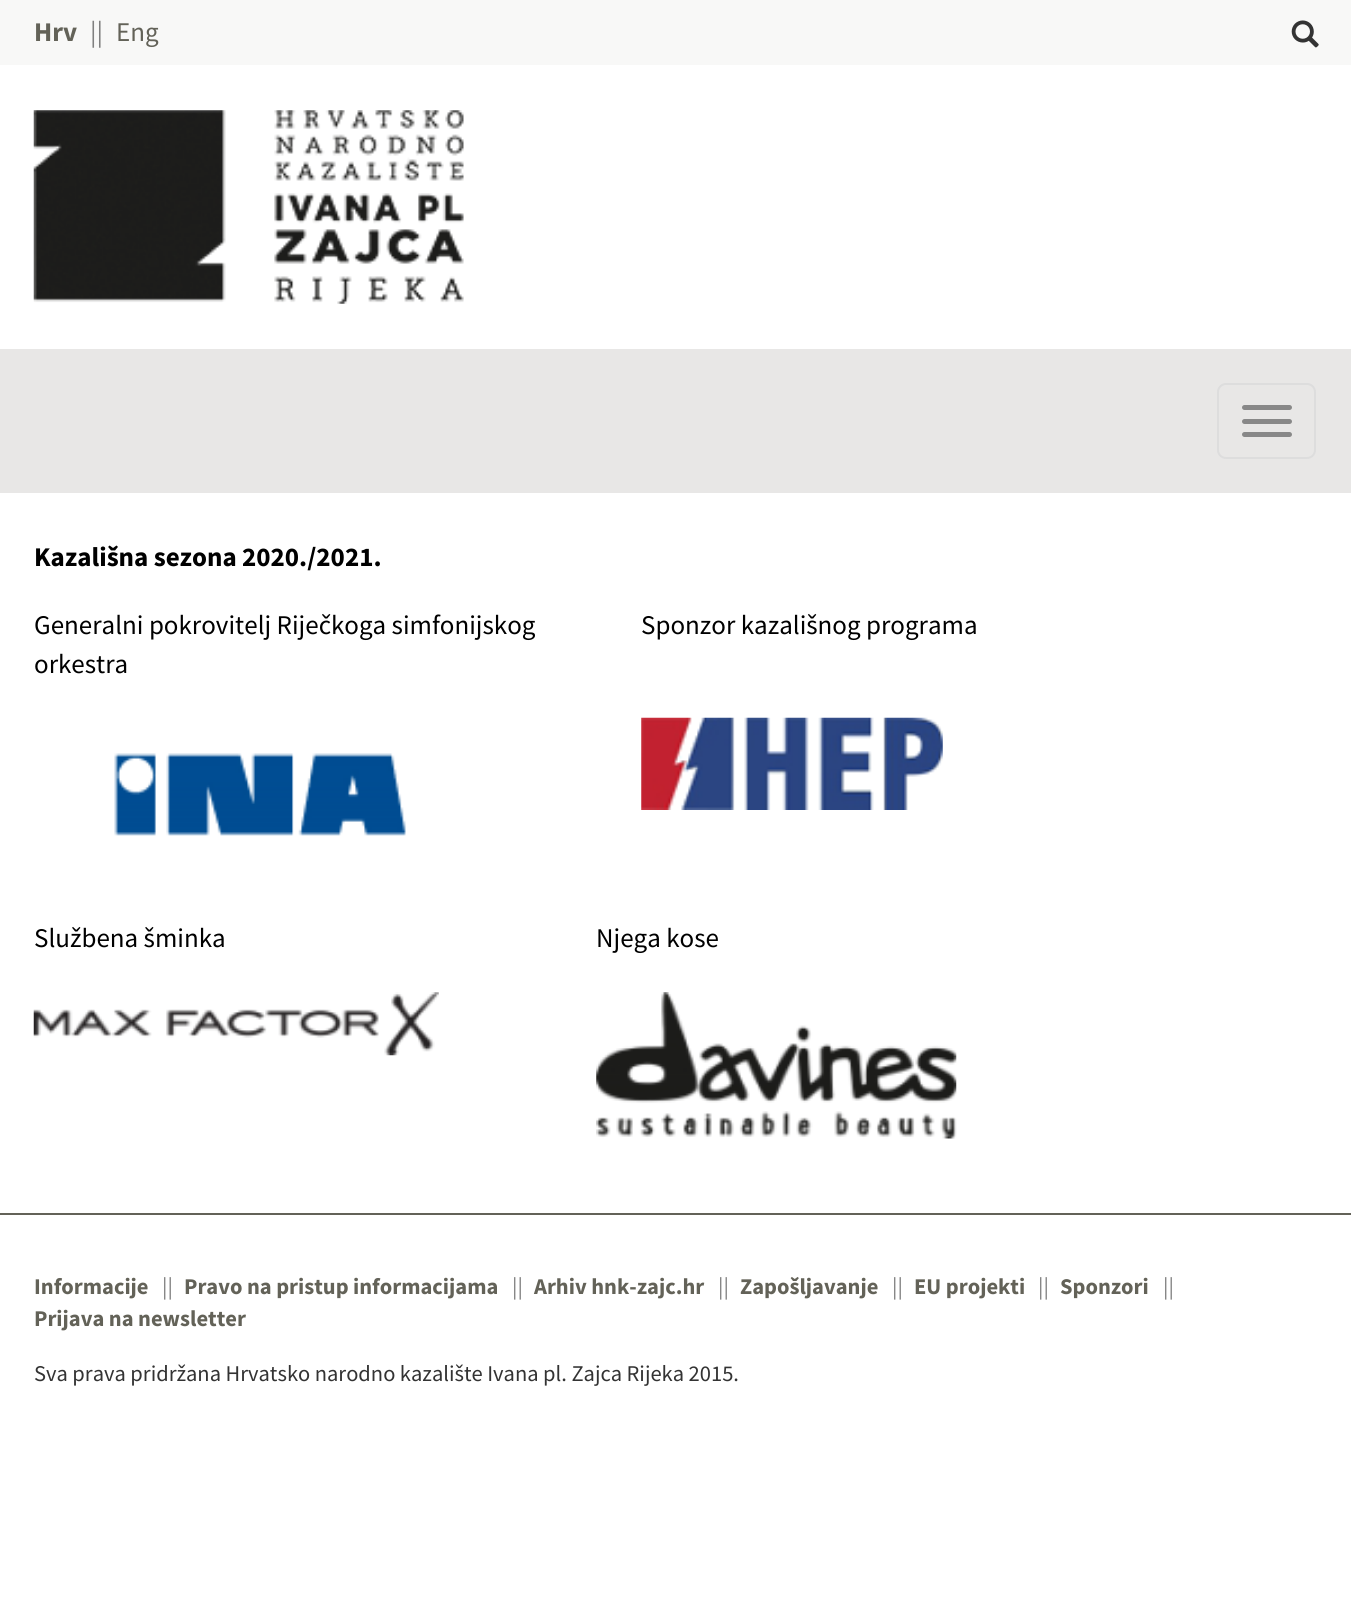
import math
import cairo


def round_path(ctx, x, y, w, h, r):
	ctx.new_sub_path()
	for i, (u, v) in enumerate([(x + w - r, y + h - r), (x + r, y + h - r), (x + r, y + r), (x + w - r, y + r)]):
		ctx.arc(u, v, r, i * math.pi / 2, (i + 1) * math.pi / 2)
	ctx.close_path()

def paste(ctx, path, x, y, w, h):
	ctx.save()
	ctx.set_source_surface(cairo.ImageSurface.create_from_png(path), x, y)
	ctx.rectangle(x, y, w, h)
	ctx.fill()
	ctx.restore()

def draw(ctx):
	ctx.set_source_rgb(1, 1, 1)
	ctx.paint()
	ctx.set_source_rgb(0.969, 0.969, 0.965)
	ctx.rectangle(0, 0, 1351, 65)
	ctx.fill()
	ctx.select_font_face('Source Sans Pro', cairo.FONT_SLANT_NORMAL, cairo.FONT_WEIGHT_BOLD)
	ctx.set_font_size(27)
	ctx.set_source_rgb(0.388, 0.384, 0.345)
	ctx.move_to(34, 41)
	ctx.show_text('Hrv')
	ctx.select_font_face('Source Sans Pro')
	ctx.set_source_rgb(0.502, 0.502, 0.502)
	ctx.move_to(90, 41)
	ctx.show_text('||')
	ctx.set_source_rgb(0.388, 0.384, 0.345)
	ctx.move_to(116, 41)
	ctx.show_text('Eng')
	paste(ctx, 'media/1.png', 1291, 20, 28, 28)
	paste(ctx, 'media/2.png', 33, 110, 431, 194)
	ctx.set_source_rgb(0.91, 0.906, 0.902)
	ctx.rectangle(0, 349, 1351, 144)
	ctx.fill()
	round_path(ctx, 1218, 384, 97, 74, 8)
	ctx.set_source_rgb(0.867, 0.867, 0.867)
	ctx.stroke()
	ctx.set_source_rgb(0.533, 0.533, 0.533)
	round_path(ctx, 1242, 405, 50, 5, 2.5)
	ctx.fill()
	round_path(ctx, 1242, 419, 50, 5, 2.5)
	ctx.fill()
	round_path(ctx, 1242, 432, 50, 5, 2.5)
	ctx.fill()
	ctx.select_font_face('Source Sans Pro', cairo.FONT_SLANT_NORMAL, cairo.FONT_WEIGHT_BOLD)
	ctx.set_source_rgb(0, 0, 0)
	ctx.move_to(34, 566)
	ctx.show_text('Kazališna sezona 2020./2021.')
	ctx.select_font_face('Source Sans Pro')
	ctx.move_to(34, 634)
	ctx.show_text('Generalni pokrovitelj Riječkoga simfonijskog')
	ctx.move_to(34, 673)
	ctx.show_text('orkestra')
	paste(ctx, 'media/3.png', 114, 753, 292, 83)
	ctx.move_to(641, 634)
	ctx.show_text('Sponzor kazališnog programa')
	paste(ctx, 'media/4.png', 641, 717, 302, 93)
	ctx.move_to(34, 947)
	ctx.show_text('Službena šminka')
	paste(ctx, 'media/5.png', 33, 992, 406, 64)
	ctx.move_to(596, 947)
	ctx.show_text('Njega kose')
	paste(ctx, 'media/6.png', 596, 992, 361, 147)
	ctx.set_source_rgb(0.388, 0.384, 0.345)
	ctx.rectangle(0, 1213, 1351, 2)
	ctx.fill()
	ctx.select_font_face('Source Sans Pro', cairo.FONT_SLANT_NORMAL, cairo.FONT_WEIGHT_BOLD)
	ctx.set_font_size(22.5)
	ctx.move_to(34, 1294)
	ctx.show_text('Informacije')
	ctx.select_font_face('Source Sans Pro')
	ctx.set_source_rgb(0.502, 0.502, 0.502)
	ctx.move_to(162, 1294)
	ctx.show_text('||')
	ctx.select_font_face('Source Sans Pro', cairo.FONT_SLANT_NORMAL, cairo.FONT_WEIGHT_BOLD)
	ctx.set_source_rgb(0.388, 0.384, 0.345)
	ctx.move_to(184, 1294)
	ctx.show_text('Pravo na pristup informacijama')
	ctx.select_font_face('Source Sans Pro')
	ctx.set_source_rgb(0.502, 0.502, 0.502)
	ctx.move_to(512, 1294)
	ctx.show_text('||')
	ctx.select_font_face('Source Sans Pro', cairo.FONT_SLANT_NORMAL, cairo.FONT_WEIGHT_BOLD)
	ctx.set_source_rgb(0.388, 0.384, 0.345)
	ctx.move_to(534, 1294)
	ctx.show_text('Arhiv hnk-zajc.hr')
	ctx.select_font_face('Source Sans Pro')
	ctx.set_source_rgb(0.502, 0.502, 0.502)
	ctx.move_to(718, 1294)
	ctx.show_text('||')
	ctx.select_font_face('Source Sans Pro', cairo.FONT_SLANT_NORMAL, cairo.FONT_WEIGHT_BOLD)
	ctx.set_source_rgb(0.388, 0.384, 0.345)
	ctx.move_to(740, 1294)
	ctx.show_text('Zapošljavanje')
	ctx.select_font_face('Source Sans Pro')
	ctx.set_source_rgb(0.502, 0.502, 0.502)
	ctx.move_to(892, 1294)
	ctx.show_text('||')
	ctx.select_font_face('Source Sans Pro', cairo.FONT_SLANT_NORMAL, cairo.FONT_WEIGHT_BOLD)
	ctx.set_source_rgb(0.388, 0.384, 0.345)
	ctx.move_to(914, 1294)
	ctx.show_text('EU projekti')
	ctx.select_font_face('Source Sans Pro')
	ctx.set_source_rgb(0.502, 0.502, 0.502)
	ctx.move_to(1038, 1294)
	ctx.show_text('||')
	ctx.select_font_face('Source Sans Pro', cairo.FONT_SLANT_NORMAL, cairo.FONT_WEIGHT_BOLD)
	ctx.set_source_rgb(0.388, 0.384, 0.345)
	ctx.move_to(1060, 1294)
	ctx.show_text('Sponzori')
	ctx.select_font_face('Source Sans Pro')
	ctx.set_source_rgb(0.502, 0.502, 0.502)
	ctx.move_to(1163, 1294)
	ctx.show_text('||')
	ctx.select_font_face('Source Sans Pro', cairo.FONT_SLANT_NORMAL, cairo.FONT_WEIGHT_BOLD)
	ctx.set_source_rgb(0.388, 0.384, 0.345)
	ctx.move_to(34, 1326)
	ctx.show_text('Prijava na newsletter')
	ctx.select_font_face('Source Sans Pro')
	ctx.set_source_rgb(0.2, 0.2, 0.2)
	ctx.move_to(34, 1381)
	ctx.show_text('Sva prava pridržana Hrvatsko narodno kazalište Ivana pl. Zajca Rijeka 2015.')


surface = cairo.ImageSurface(cairo.FORMAT_RGB24, 1351, 1605)
ctx = cairo.Context(surface)
options = cairo.FontOptions()
options.set_hint_metrics(cairo.HINT_METRICS_OFF)
options.set_hint_style(cairo.HINT_STYLE_NONE)
ctx.set_font_options(options)
ctx.set_miter_limit(4)
draw(ctx)
surface.write_to_png('image.png')
